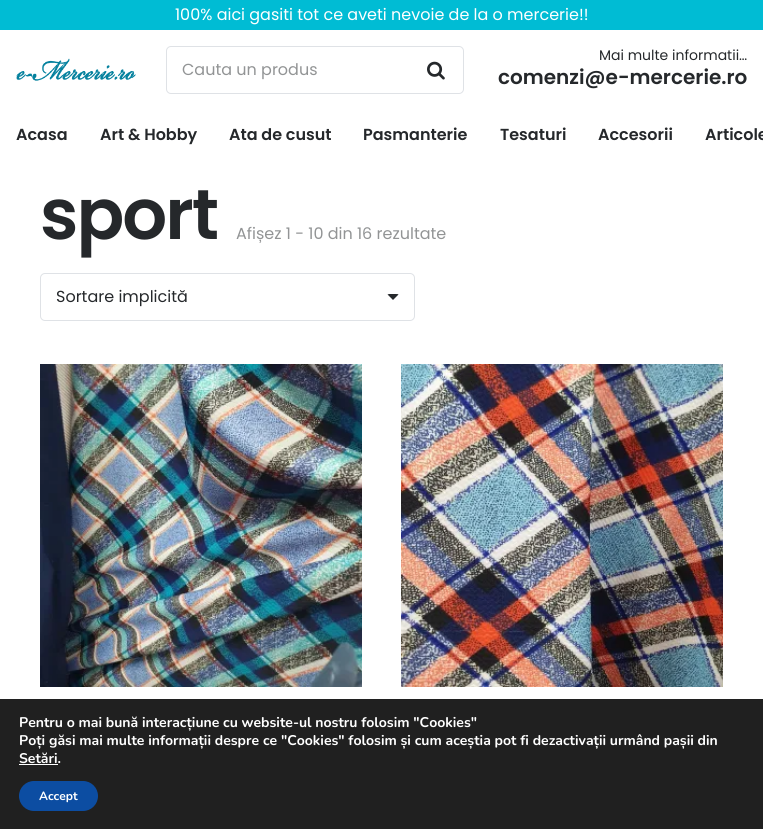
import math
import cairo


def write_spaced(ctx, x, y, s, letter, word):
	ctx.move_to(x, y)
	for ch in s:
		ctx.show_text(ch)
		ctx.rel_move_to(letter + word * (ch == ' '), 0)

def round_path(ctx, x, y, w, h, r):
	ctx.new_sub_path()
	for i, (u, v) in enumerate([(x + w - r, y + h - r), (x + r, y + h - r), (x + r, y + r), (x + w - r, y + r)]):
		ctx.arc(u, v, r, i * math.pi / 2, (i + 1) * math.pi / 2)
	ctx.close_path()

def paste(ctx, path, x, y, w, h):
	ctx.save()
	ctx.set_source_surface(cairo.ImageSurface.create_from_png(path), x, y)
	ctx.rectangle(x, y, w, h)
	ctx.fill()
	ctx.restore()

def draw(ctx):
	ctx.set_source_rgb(1, 1, 1)
	ctx.paint()
	ctx.set_source_rgb(0, 0.737, 0.831)
	ctx.rectangle(0, 0, 763, 30)
	ctx.fill()
	ctx.select_font_face('Poppins')
	ctx.set_font_size(16)
	ctx.set_source_rgb(1, 1, 1)
	ctx.move_to(175, 20)
	ctx.show_text('100% aici gasiti tot ce aveti nevoie de la o mercerie!!')
	paste(ctx, 'media/1.png', 16, 58, 120, 23)
	round_path(ctx, 166.5, 46.5, 297, 47, 4.5)
	ctx.set_source_rgb(0.875, 0.886, 0.902)
	ctx.set_line_width(1)
	ctx.stroke()
	ctx.set_source_rgb(0.573, 0.58, 0.584)
	ctx.move_to(182, 75)
	ctx.show_text('Cauta un produs')
	paste(ctx, 'media/2.png', 427, 61, 18, 19)
	ctx.set_font_size(14)
	ctx.set_source_rgb(0.145, 0.157, 0.169)
	ctx.move_to(599, 60)
	ctx.show_text('Mai multe informatii…')
	ctx.select_font_face('Poppins SemiBold')
	ctx.set_font_size(20)
	ctx.move_to(498, 84)
	ctx.show_text('comenzi@e-mercerie.ro')
	ctx.set_font_size(16)
	for x, y, s in [
		(16, 140, 'Acasa'),
		(100, 140, 'Art & Hobby'),
		(229, 140, 'Ata de cusut'),
		(363, 140, 'Pasmanterie'),
		(500, 140, 'Tesaturi'),
		(598, 140, 'Accesorii'),
		(705, 140, 'Articole'),
	]:
		ctx.move_to(x, y)
		ctx.show_text(s)
	ctx.set_font_size(70.5)
	write_spaced(ctx, 40, 239, 'sport', -2, 0)
	ctx.select_font_face('Poppins')
	ctx.set_font_size(16)
	ctx.set_source_rgb(0.573, 0.58, 0.584)
	ctx.move_to(236, 239)
	ctx.show_text('Afișez 1 - 10 din 16 rezultate')
	round_path(ctx, 40.5, 273.5, 374, 47, 4.5)
	ctx.set_source_rgb(0.875, 0.886, 0.902)
	ctx.stroke()
	ctx.set_source_rgb(0.145, 0.157, 0.169)
	ctx.move_to(56, 302)
	ctx.show_text('Sortare implicită')
	ctx.new_path()
	ctx.move_to(389, 294)
	ctx.line_to(387.5, 294.5)
	ctx.line_to(393, 300)
	ctx.line_to(398.5, 294.5)
	ctx.curve_to(398, 294, 397, 294, 395.5, 294)
	ctx.close_path()
	ctx.fill()
	paste(ctx, 'media/3.png', 40, 364, 322, 323)
	paste(ctx, 'media/4.png', 401, 364, 322, 323)
	ctx.set_source_rgb(0.125, 0.125, 0.125)
	ctx.rectangle(0, 699, 763, 130)
	ctx.fill()
	ctx.select_font_face('Nunito', cairo.FONT_SLANT_NORMAL, cairo.FONT_WEIGHT_BOLD)
	ctx.set_font_size(14)
	ctx.set_source_rgb(1, 1, 1)
	for x, y, s in [
		(19, 727, 'Pentru o mai bună interacțiune cu website-ul nostru folosim "Cookies"'),
		(19, 745, 'Poți găsi mai multe informații despre ce "Cookies" folosim și cum aceștia pot fi dezactivații urmând pașii din'),
		(19, 763, 'Setări.'),
	]:
		ctx.move_to(x, y)
		ctx.show_text(s)
	ctx.rectangle(19, 764, 39, 1)
	ctx.fill()
	ctx.set_source_rgb(0.047, 0.302, 0.635)
	round_path(ctx, 19, 781, 79, 30, 15)
	ctx.fill()
	ctx.set_font_size(12)
	ctx.set_source_rgb(1, 1, 1)
	ctx.move_to(39, 800)
	ctx.show_text('Accept')


surface = cairo.ImageSurface(cairo.FORMAT_RGB24, 763, 829)
ctx = cairo.Context(surface)
options = cairo.FontOptions()
options.set_hint_metrics(cairo.HINT_METRICS_OFF)
options.set_hint_style(cairo.HINT_STYLE_NONE)
ctx.set_font_options(options)
ctx.set_miter_limit(4)
draw(ctx)
surface.write_to_png('image.png')
